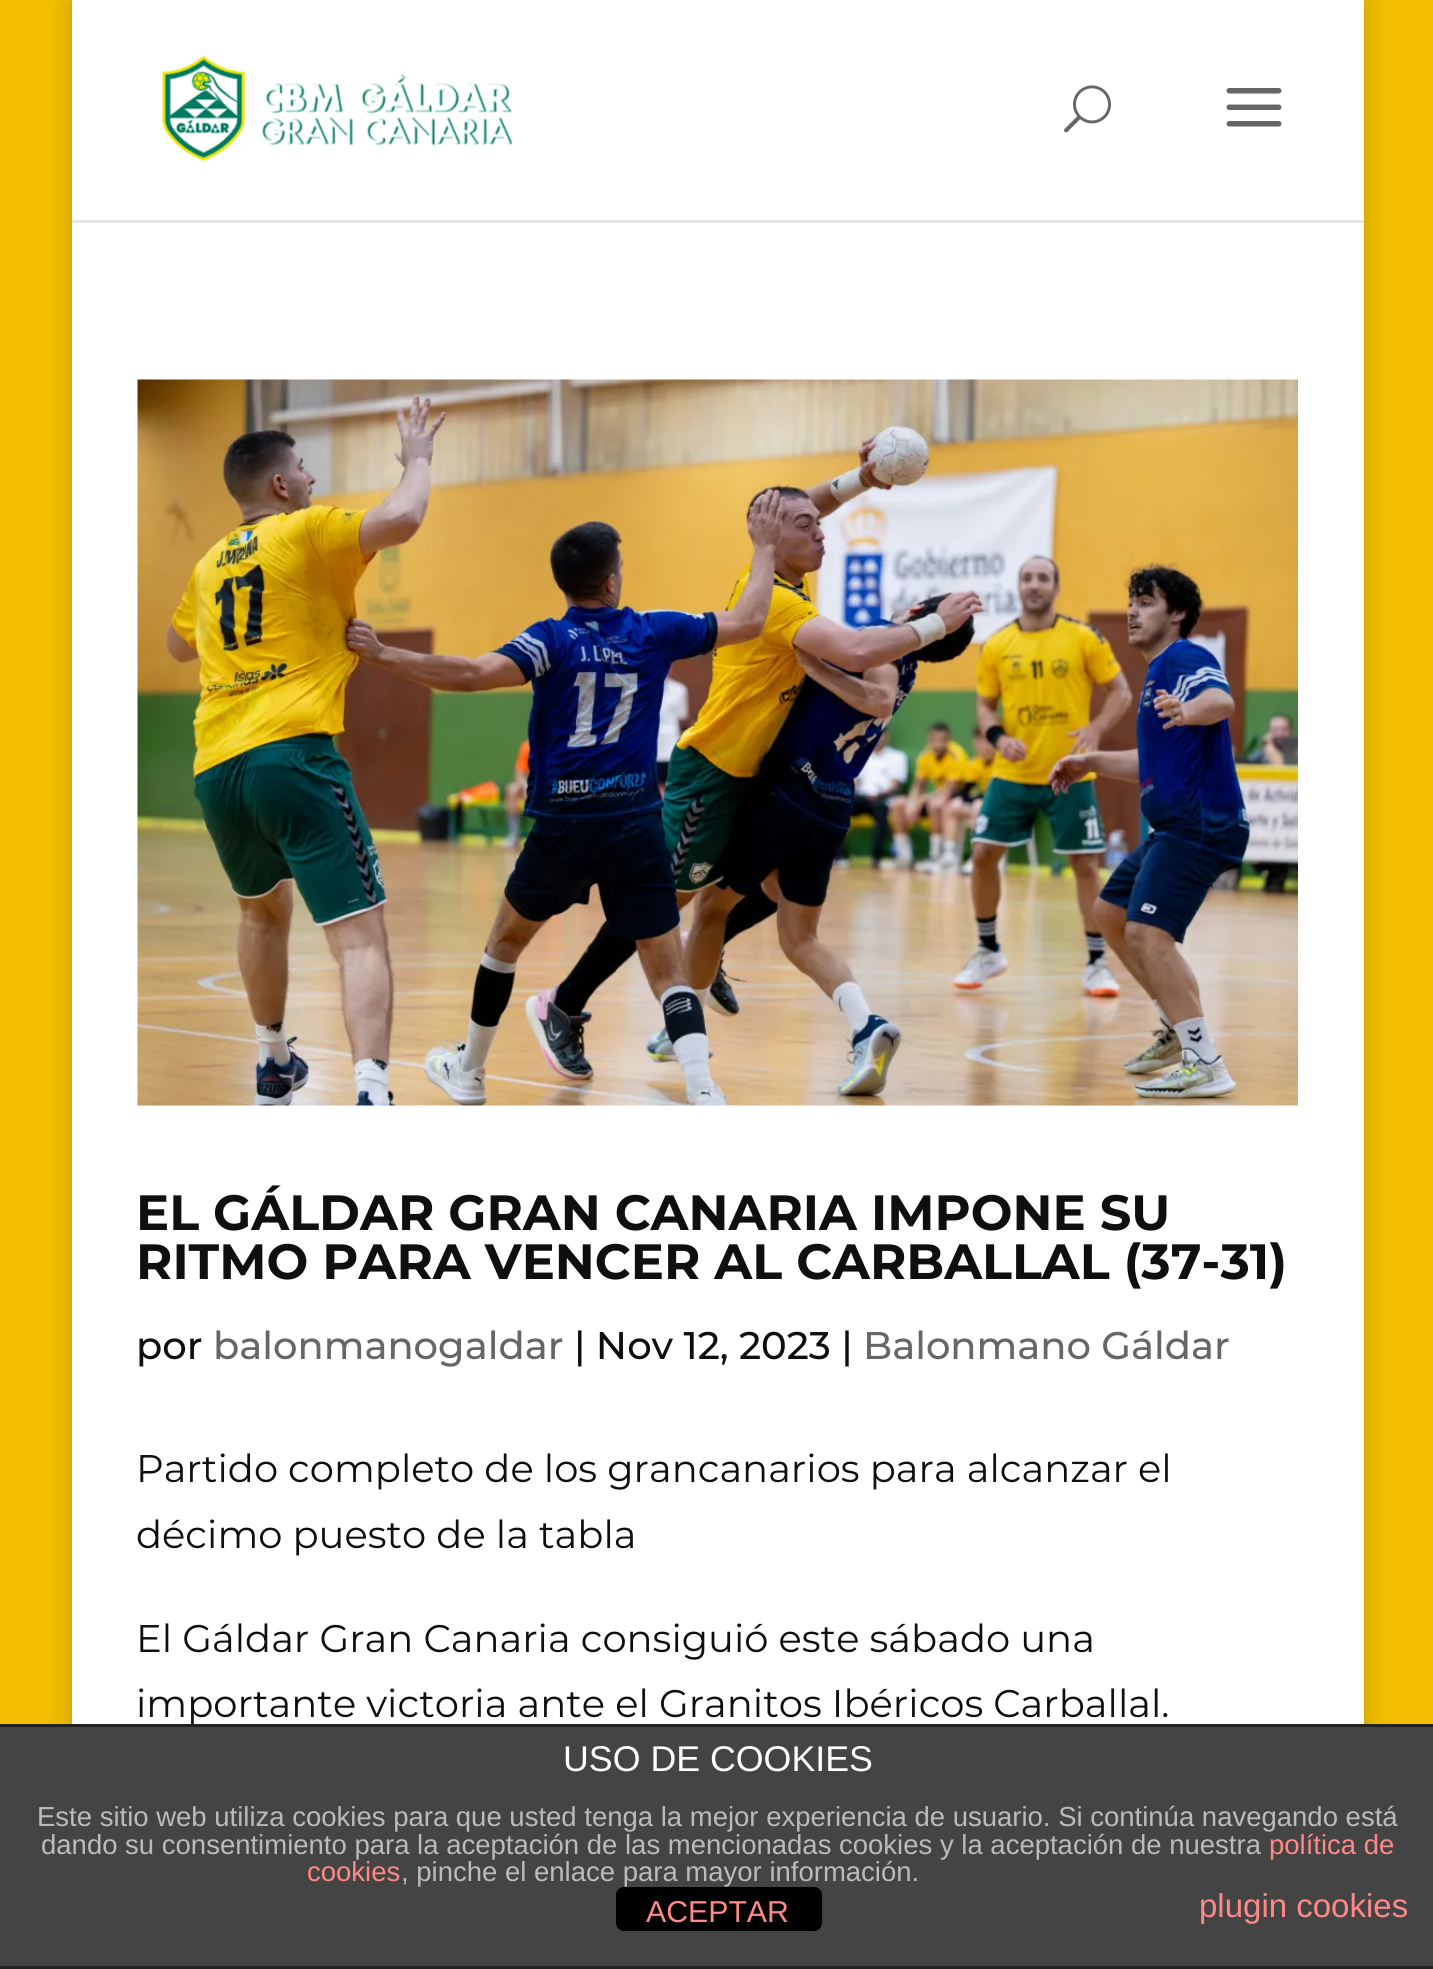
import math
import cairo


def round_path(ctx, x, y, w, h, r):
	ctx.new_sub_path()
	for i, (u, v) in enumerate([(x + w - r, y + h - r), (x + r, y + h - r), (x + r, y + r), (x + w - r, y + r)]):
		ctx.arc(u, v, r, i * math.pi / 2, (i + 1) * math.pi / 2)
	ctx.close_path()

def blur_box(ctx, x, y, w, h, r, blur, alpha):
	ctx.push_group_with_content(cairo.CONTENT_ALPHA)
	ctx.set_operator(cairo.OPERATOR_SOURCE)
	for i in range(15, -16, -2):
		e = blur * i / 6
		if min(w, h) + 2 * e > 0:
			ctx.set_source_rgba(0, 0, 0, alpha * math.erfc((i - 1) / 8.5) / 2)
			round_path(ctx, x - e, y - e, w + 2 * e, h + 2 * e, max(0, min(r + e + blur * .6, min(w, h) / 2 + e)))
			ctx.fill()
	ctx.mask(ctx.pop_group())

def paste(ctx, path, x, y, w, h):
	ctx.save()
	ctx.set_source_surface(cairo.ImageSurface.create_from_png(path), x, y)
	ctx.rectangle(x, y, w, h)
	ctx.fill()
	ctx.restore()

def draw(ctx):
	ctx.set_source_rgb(0.957, 0.749, 0)
	ctx.paint()
	ctx.set_source_rgb(0, 0, 0)
	blur_box(ctx, 72, 0, 1292, 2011, 0, 14, 0.2)
	ctx.set_source_rgb(0.902, 0.902, 0.902)
	ctx.rectangle(72, 220, 1292, 3)
	ctx.fill()
	ctx.set_source_rgb(1, 1, 1)
	ctx.rectangle(72, 0, 1292, 220)
	ctx.fill()
	paste(ctx, 'media/1.png', 161, 55, 352, 110)
	paste(ctx, 'media/2.png', 1064, 85, 47, 48)
	paste(ctx, 'media/3.png', 1226, 88, 56, 39)
	ctx.rectangle(72, 223, 1292, 1501)
	ctx.fill()
	paste(ctx, 'media/4.png', 137, 379, 1161, 727)
	ctx.select_font_face('Montserrat Thin')
	ctx.set_font_size(49.5)
	ctx.set_source_rgb(0.059, 0.059, 0.059)
	ctx.move_to(136, 1230)
	ctx.show_text('EL GÁLDAR GRAN CANARIA IMPONE SU')
	ctx.move_to(136, 1279)
	ctx.show_text('RITMO PARA VENCER AL CARBALLAL (37-31)')
	ctx.select_font_face('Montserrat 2 Thin')
	ctx.set_font_size(38.5)
	ctx.move_to(136, 1359)
	ctx.show_text('por')
	ctx.set_source_rgb(0.4, 0.4, 0.4)
	ctx.move_to(213, 1359)
	ctx.show_text('balonmanogaldar')
	ctx.set_source_rgb(0.059, 0.059, 0.059)
	ctx.move_to(574, 1359)
	ctx.show_text('| Nov 12, 2023 |')
	ctx.set_source_rgb(0.4, 0.4, 0.4)
	ctx.move_to(863, 1359)
	ctx.show_text('Balonmano Gáldar')
	ctx.select_font_face('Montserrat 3 Thin')
	ctx.set_source_rgb(0.059, 0.059, 0.059)
	for x, y, s in [
		(136, 1482, 'Partido completo de los grancanarios para alcanzar el'),
		(136, 1548, 'décimo puesto de la tabla'),
		(136, 1652, 'El Gáldar Gran Canaria consiguió este sábado una'),
		(136, 1717, 'importante victoria ante el Granitos Ibéricos Carballal.'),
	]:
		ctx.move_to(x, y)
		ctx.show_text(s)
	ctx.set_source_rgb(0.267, 0.267, 0.267)
	ctx.rectangle(0, 1727, 1433, 239)
	ctx.fill()
	ctx.set_source_rgb(0.133, 0.133, 0.133)
	ctx.rectangle(0, 1724, 1433, 3)
	ctx.rectangle(0, 1966, 1433, 3)
	ctx.fill()
	ctx.select_font_face('Liberation Sans')
	ctx.set_font_size(35.75)
	ctx.set_source_rgb(1, 1, 1)
	ctx.move_to(563, 1771)
	ctx.show_text('USO DE COOKIES')
	ctx.set_font_size(27.5)
	ctx.set_source_rgb(0.733, 0.733, 0.733)
	ctx.move_to(37, 1826)
	ctx.show_text('Este sitio web utiliza cookies para que usted tenga la mejor experiencia de usuario. Si continúa navegando está')
	ctx.move_to(41, 1854)
	ctx.show_text('dando su consentimiento para la aceptación de las mencionadas cookies y la aceptación de nuestra')
	ctx.set_source_rgb(1, 0.533, 0.533)
	ctx.move_to(1269, 1854)
	ctx.show_text('política de')
	ctx.move_to(307, 1881)
	ctx.show_text('cookies')
	ctx.set_source_rgb(0.733, 0.733, 0.733)
	ctx.move_to(401, 1881)
	ctx.show_text(', pinche el enlace para mayor información.')
	ctx.set_font_size(33)
	ctx.set_source_rgb(1, 0.533, 0.533)
	ctx.move_to(1199, 1917)
	ctx.show_text('plugin cookies')
	ctx.set_source_rgb(0, 0, 0)
	round_path(ctx, 616, 1887, 206, 44, 8)
	ctx.fill()
	ctx.set_font_size(30.25)
	ctx.set_source_rgb(1, 0.533, 0.533)
	ctx.move_to(646, 1922)
	ctx.show_text('ACEPTAR')


surface = cairo.ImageSurface(cairo.FORMAT_RGB24, 1433, 1969)
ctx = cairo.Context(surface)
options = cairo.FontOptions()
options.set_hint_metrics(cairo.HINT_METRICS_OFF)
options.set_hint_style(cairo.HINT_STYLE_NONE)
ctx.set_font_options(options)
ctx.set_miter_limit(4)
draw(ctx)
surface.write_to_png('image.png')
